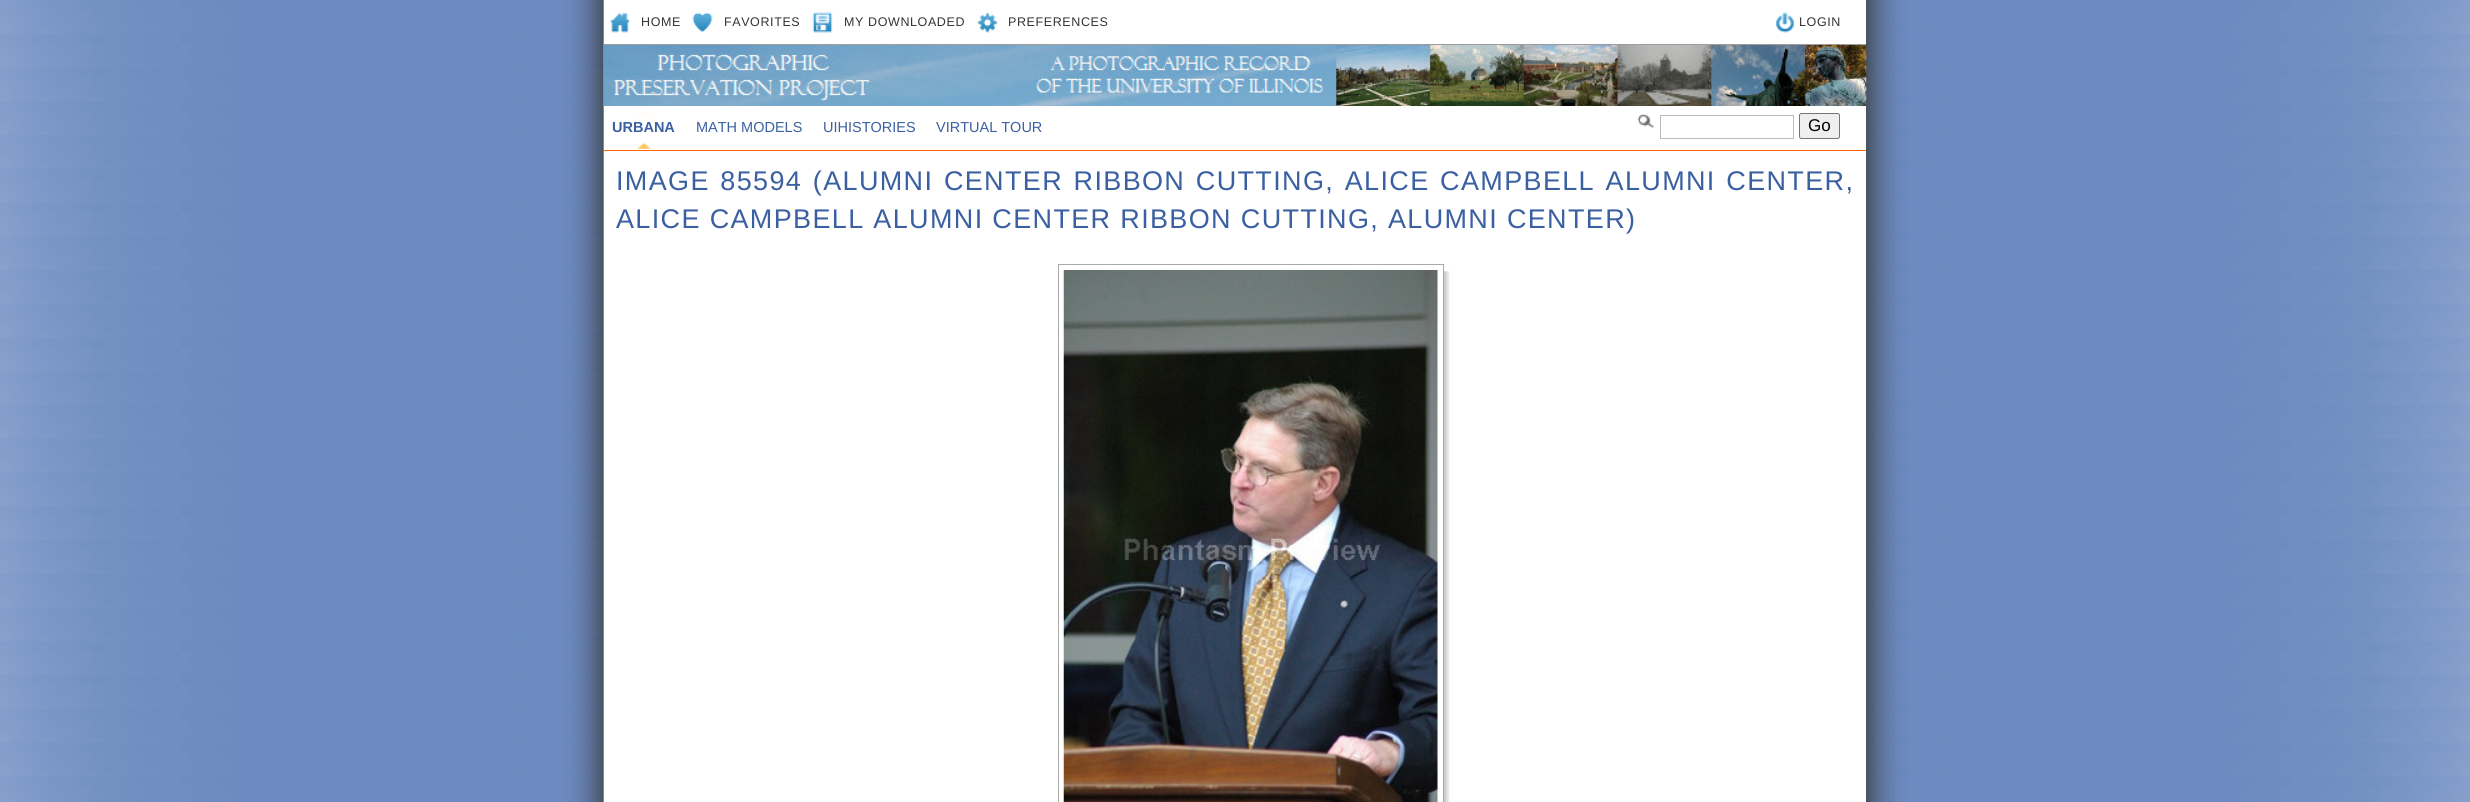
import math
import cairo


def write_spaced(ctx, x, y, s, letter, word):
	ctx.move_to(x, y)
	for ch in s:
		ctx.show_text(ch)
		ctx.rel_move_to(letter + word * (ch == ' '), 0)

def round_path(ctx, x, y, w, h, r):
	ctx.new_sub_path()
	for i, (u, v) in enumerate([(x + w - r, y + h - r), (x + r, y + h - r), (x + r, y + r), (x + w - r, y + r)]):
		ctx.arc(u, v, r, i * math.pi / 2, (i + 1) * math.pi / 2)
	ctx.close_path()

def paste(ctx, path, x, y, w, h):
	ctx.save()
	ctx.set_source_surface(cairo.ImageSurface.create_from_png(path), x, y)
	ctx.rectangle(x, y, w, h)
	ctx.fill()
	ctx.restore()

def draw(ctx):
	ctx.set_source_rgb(1, 1, 1)
	ctx.paint()
	paste(ctx, 'media/1.png', 0, 0, 2470, 802)
	ctx.set_source_rgb(1, 1, 1)
	ctx.rectangle(604, 0, 1262, 802)
	ctx.fill()
	ctx.set_source_rgb(0.616, 0.616, 0.616)
	ctx.rectangle(604, 44, 1262, 1)
	ctx.fill()
	paste(ctx, 'media/2.png', 610, 12, 20, 21)
	ctx.select_font_face('Liberation Sans')
	ctx.set_font_size(12.5)
	ctx.set_source_rgb(0.2, 0.2, 0.2)
	write_spaced(ctx, 641, 26, 'HOME', 0.6, 0)
	paste(ctx, 'media/3.png', 692, 12, 21, 21)
	write_spaced(ctx, 724, 26, 'FAVORITES', 0.6, 0)
	paste(ctx, 'media/4.png', 812, 12, 21, 21)
	write_spaced(ctx, 844, 26, 'MY DOWNLOADED', 0.6, 0)
	paste(ctx, 'media/5.png', 977, 12, 21, 21)
	write_spaced(ctx, 1008, 26, 'PREFERENCES', 0.6, 0)
	paste(ctx, 'media/6.png', 1776, 12, 18, 21)
	write_spaced(ctx, 1799, 26, 'LOGIN', 0.6, 0)
	paste(ctx, 'media/7.png', 603, 45, 1264, 62)
	ctx.set_source_rgb(1, 1, 1)
	ctx.rectangle(604, 106, 1262, 1)
	ctx.fill()
	ctx.set_source_rgb(1, 0.4, 0)
	ctx.rectangle(604, 150, 1262, 1)
	ctx.fill()
	paste(ctx, 'media/8.png', 633, 112, 22, 37)
	ctx.select_font_face('Liberation Sans', cairo.FONT_SLANT_NORMAL, cairo.FONT_WEIGHT_BOLD)
	ctx.set_font_size(14.5)
	ctx.set_source_rgb(0.231, 0.376, 0.631)
	ctx.move_to(612, 132)
	ctx.show_text('URBANA')
	ctx.select_font_face('Liberation Sans')
	for x, y, s in [
		(696, 132, 'MATH MODELS'),
		(823, 132, 'UIHISTORIES'),
		(936, 132, 'VIRTUAL TOUR'),
	]:
		ctx.move_to(x, y)
		ctx.show_text(s)
	ctx.set_font_size(27)
	write_spaced(ctx, 616, 190, 'IMAGE 85594 (ALUMNI CENTER RIBBON CUTTING, ALICE CAMPBELL ALUMNI CENTER,', 1.35, 1.75)
	write_spaced(ctx, 616, 228, 'ALICE CAMPBELL ALUMNI CENTER RIBBON CUTTING, ALUMNI CENTER)', 1.35, 0)
	paste(ctx, 'media/9.png', 1444, 271, 6, 531)
	ctx.rectangle(1058.5, 264.5, 385, 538)
	ctx.set_source_rgb(0.663, 0.663, 0.663)
	ctx.set_line_width(1)
	ctx.stroke()
	paste(ctx, 'media/10.png', 1063, 270, 375, 532)
	paste(ctx, 'media/11.png', 1637, 113, 17, 15)
	ctx.rectangle(1660.5, 115.5, 133, 23)
	ctx.set_source_rgb(0.733, 0.733, 0.733)
	ctx.stroke()
	ctx.set_source_rgb(0.937, 0.937, 0.937)
	round_path(ctx, 1799.5, 113.5, 40, 25, 2)
	ctx.fill_preserve()
	ctx.set_source_rgb(0.463, 0.463, 0.463)
	ctx.stroke()
	ctx.set_font_size(17)
	ctx.set_source_rgb(0, 0, 0)
	ctx.move_to(1808, 131)
	ctx.show_text('Go')


surface = cairo.ImageSurface(cairo.FORMAT_RGB24, 2470, 802)
ctx = cairo.Context(surface)
options = cairo.FontOptions()
options.set_hint_metrics(cairo.HINT_METRICS_OFF)
options.set_hint_style(cairo.HINT_STYLE_NONE)
ctx.set_font_options(options)
ctx.set_miter_limit(4)
draw(ctx)
surface.write_to_png('image.png')
